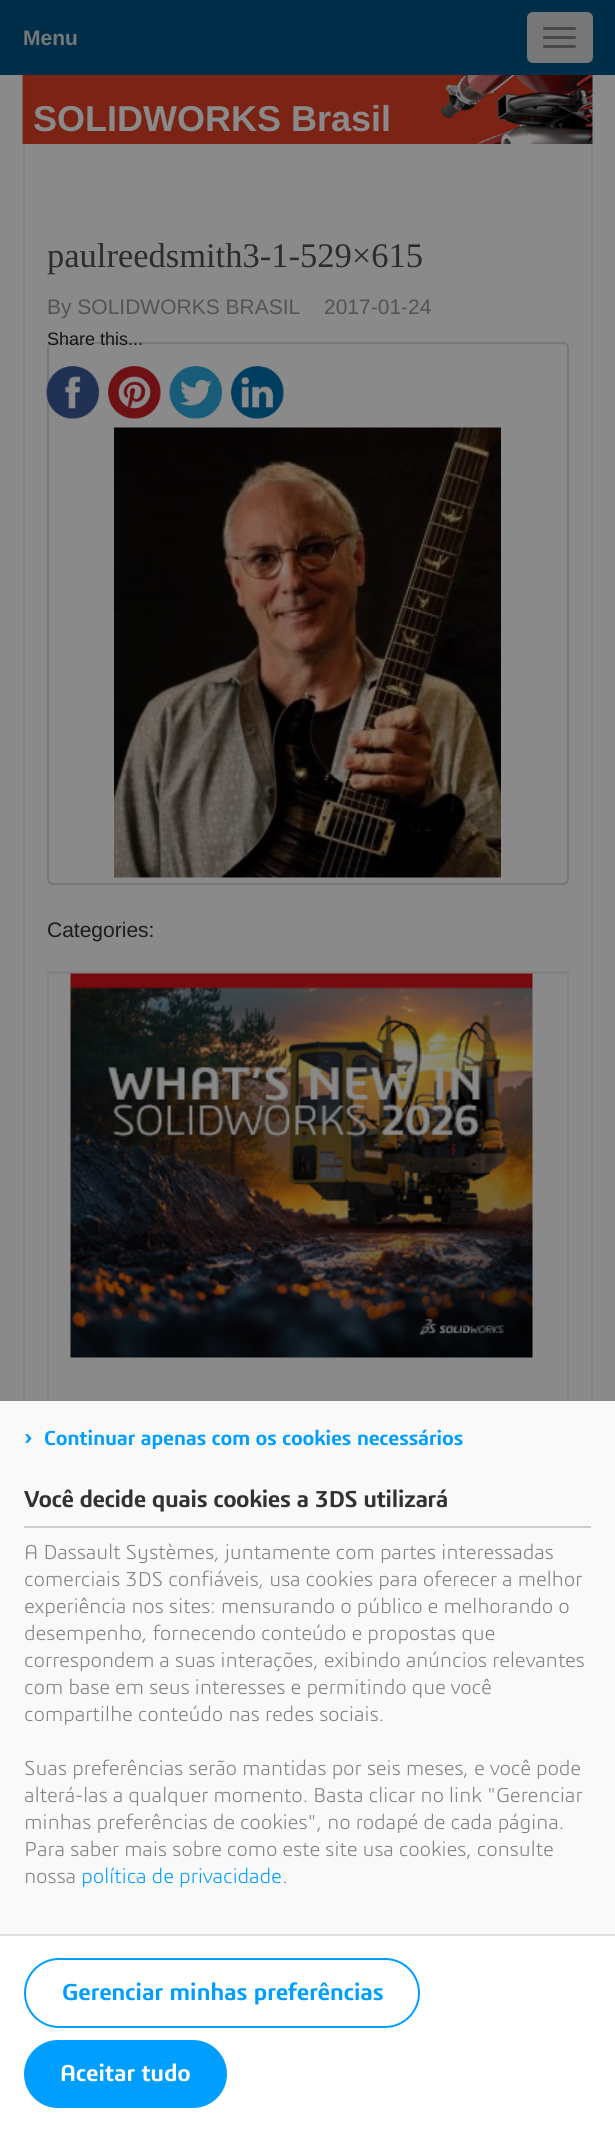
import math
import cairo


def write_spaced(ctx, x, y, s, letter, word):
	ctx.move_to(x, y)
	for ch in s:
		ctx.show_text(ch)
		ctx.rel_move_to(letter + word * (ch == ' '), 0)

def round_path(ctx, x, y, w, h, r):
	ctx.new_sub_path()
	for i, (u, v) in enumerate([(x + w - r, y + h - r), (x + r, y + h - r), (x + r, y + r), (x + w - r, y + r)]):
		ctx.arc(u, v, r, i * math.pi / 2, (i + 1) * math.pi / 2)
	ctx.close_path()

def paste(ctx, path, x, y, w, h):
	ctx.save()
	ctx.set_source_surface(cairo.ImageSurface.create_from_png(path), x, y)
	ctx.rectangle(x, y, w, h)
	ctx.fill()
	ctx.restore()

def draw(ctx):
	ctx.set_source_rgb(0.541, 0.541, 0.541)
	ctx.paint()
	ctx.set_source_rgb(0, 0.18, 0.282)
	ctx.rectangle(0, 0, 615, 75)
	ctx.fill()
	ctx.select_font_face('Liberation Sans', cairo.FONT_SLANT_NORMAL, cairo.FONT_WEIGHT_BOLD)
	ctx.set_font_size(21)
	ctx.set_source_rgb(0.467, 0.467, 0.467)
	ctx.move_to(23, 45)
	ctx.show_text('Menu')
	round_path(ctx, 528, 13, 64, 49, 5)
	ctx.fill_preserve()
	ctx.stroke()
	ctx.set_source_rgb(0.286, 0.286, 0.286)
	round_path(ctx, 543, 27, 33, 3, 1.5)
	ctx.fill()
	round_path(ctx, 543, 36, 33, 3, 1.5)
	ctx.fill()
	round_path(ctx, 543, 45, 33, 3, 1.5)
	ctx.fill()
	paste(ctx, 'media/1.png', 22, 75, 571, 69)
	ctx.set_font_size(36)
	ctx.set_source_rgb(0.541, 0.541, 0.541)
	ctx.move_to(33, 131)
	ctx.show_text('SOLIDWORKS Brasil')
	ctx.set_source_rgb(0.506, 0.506, 0.506)
	ctx.rectangle(591, 144, 2, 1257)
	ctx.rectangle(23, 144, 2, 1257)
	ctx.rectangle(47, 971, 522, 1)
	ctx.fill()
	ctx.select_font_face('Liberation Serif')
	ctx.set_font_size(34.5)
	ctx.set_source_rgb(0.173, 0.173, 0.173)
	ctx.move_to(47, 267)
	ctx.show_text('paulreedsmith3-1-529×615')
	ctx.select_font_face('Liberation Sans')
	ctx.set_font_size(21)
	ctx.set_source_rgb(0.325, 0.325, 0.325)
	ctx.move_to(47, 314)
	ctx.show_text('By SOLIDWORKS BRASIL')
	ctx.move_to(324, 314)
	ctx.show_text('2017-01-24')
	round_path(ctx, 48, 343, 520, 541, 5)
	ctx.set_source_rgb(0.467, 0.467, 0.467)
	ctx.stroke()
	ctx.set_font_size(18)
	ctx.set_source_rgb(0.082, 0.082, 0.082)
	ctx.move_to(47, 345)
	ctx.show_text('Share this...')
	paste(ctx, 'media/2.png', 46, 366, 53, 53)
	paste(ctx, 'media/3.png', 108, 366, 53, 53)
	paste(ctx, 'media/4.png', 169, 366, 53, 53)
	paste(ctx, 'media/5.png', 231, 366, 53, 53)
	paste(ctx, 'media/6.png', 114, 427, 387, 451)
	ctx.set_font_size(21)
	ctx.set_source_rgb(0.11, 0.11, 0.11)
	ctx.move_to(47, 937)
	ctx.show_text('Categories:')
	ctx.rectangle(48, 973, 520, 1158)
	ctx.set_source_rgb(0.506, 0.506, 0.506)
	ctx.stroke()
	paste(ctx, 'media/7.png', 70, 973, 463, 385)
	ctx.set_source_rgb(0.976, 0.976, 0.976)
	ctx.rectangle(0, 1401, 615, 533)
	ctx.fill()
	ctx.set_source_rgb(0.8, 0.8, 0.8)
	ctx.rectangle(24, 1526, 567, 2)
	ctx.fill()
	ctx.select_font_face('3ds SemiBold')
	ctx.set_font_size(24)
	ctx.set_source_rgb(0, 0.62, 1)
	write_spaced(ctx, 24, 1445, '›', -0.3, 0)
	ctx.set_font_size(21)
	write_spaced(ctx, 44, 1445, 'Continuar apenas com os cookies necessários', -0.3, 0)
	ctx.set_font_size(24)
	ctx.set_source_rgb(0.196, 0.196, 0.196)
	write_spaced(ctx, 24, 1507, 'Você decide quais cookies a 3DS utilizará', -0.6, 0)
	ctx.select_font_face('3ds Light')
	ctx.set_font_size(21)
	ctx.set_source_rgb(0.506, 0.506, 0.506)
	for x, y, s in [
		(24, 1559, 'A Dassault Systèmes, juntamente com partes interessadas'),
		(24, 1586, 'comerciais 3DS confiáveis, usa cookies para oferecer a melhor'),
		(24, 1613, 'experiência nos sites: mensurando o público e melhorando o'),
		(24, 1640, 'desempenho, fornecendo conteúdo e propostas que'),
		(24, 1667, 'correspondem a suas interações, exibindo anúncios relevantes'),
		(24, 1694, 'com base em seus interesses e permitindo que você'),
		(24, 1721, 'compartilhe conteúdo nas redes sociais.'),
		(24, 1775, 'Suas preferências serão mantidas por seis meses, e você pode'),
		(24, 1802, 'alterá-las a qualquer momento. Basta clicar no link "Gerenciar'),
		(24, 1829, 'minhas preferências de cookies", no rodapé de cada página.'),
		(24, 1856, 'Para saber mais sobre como este site usa cookies, consulte'),
		(24, 1883, 'nossa'),
	]:
		write_spaced(ctx, x, y, s, -0.25, 0)
	ctx.set_source_rgb(0, 0.62, 1)
	write_spaced(ctx, 81, 1883, 'política de privacidade', -0.25, 0)
	ctx.set_source_rgb(0.506, 0.506, 0.506)
	write_spaced(ctx, 282, 1883, '.', -0.25, 0)
	ctx.set_source_rgb(1, 1, 1)
	ctx.rectangle(0, 1936, 615, 194)
	ctx.fill()
	ctx.set_source_rgb(0.871, 0.871, 0.871)
	ctx.rectangle(0, 1934, 615, 2)
	ctx.fill()
	round_path(ctx, 25, 1959, 394, 68, 34)
	ctx.set_source_rgb(0, 0.62, 1)
	ctx.stroke()
	ctx.select_font_face('3ds SemiBold')
	ctx.set_font_size(24)
	write_spaced(ctx, 62, 2000, 'Gerenciar minhas preferências', -0.3, 0)
	round_path(ctx, 24, 2040, 203, 68, 34)
	ctx.fill()
	ctx.set_source_rgb(1, 1, 1)
	write_spaced(ctx, 60, 2081, 'Aceitar tudo', -0.3, 0)


surface = cairo.ImageSurface(cairo.FORMAT_RGB24, 615, 2130)
ctx = cairo.Context(surface)
options = cairo.FontOptions()
options.set_hint_metrics(cairo.HINT_METRICS_OFF)
options.set_hint_style(cairo.HINT_STYLE_NONE)
ctx.set_font_options(options)
ctx.set_miter_limit(4)
draw(ctx)
surface.write_to_png('image.png')
